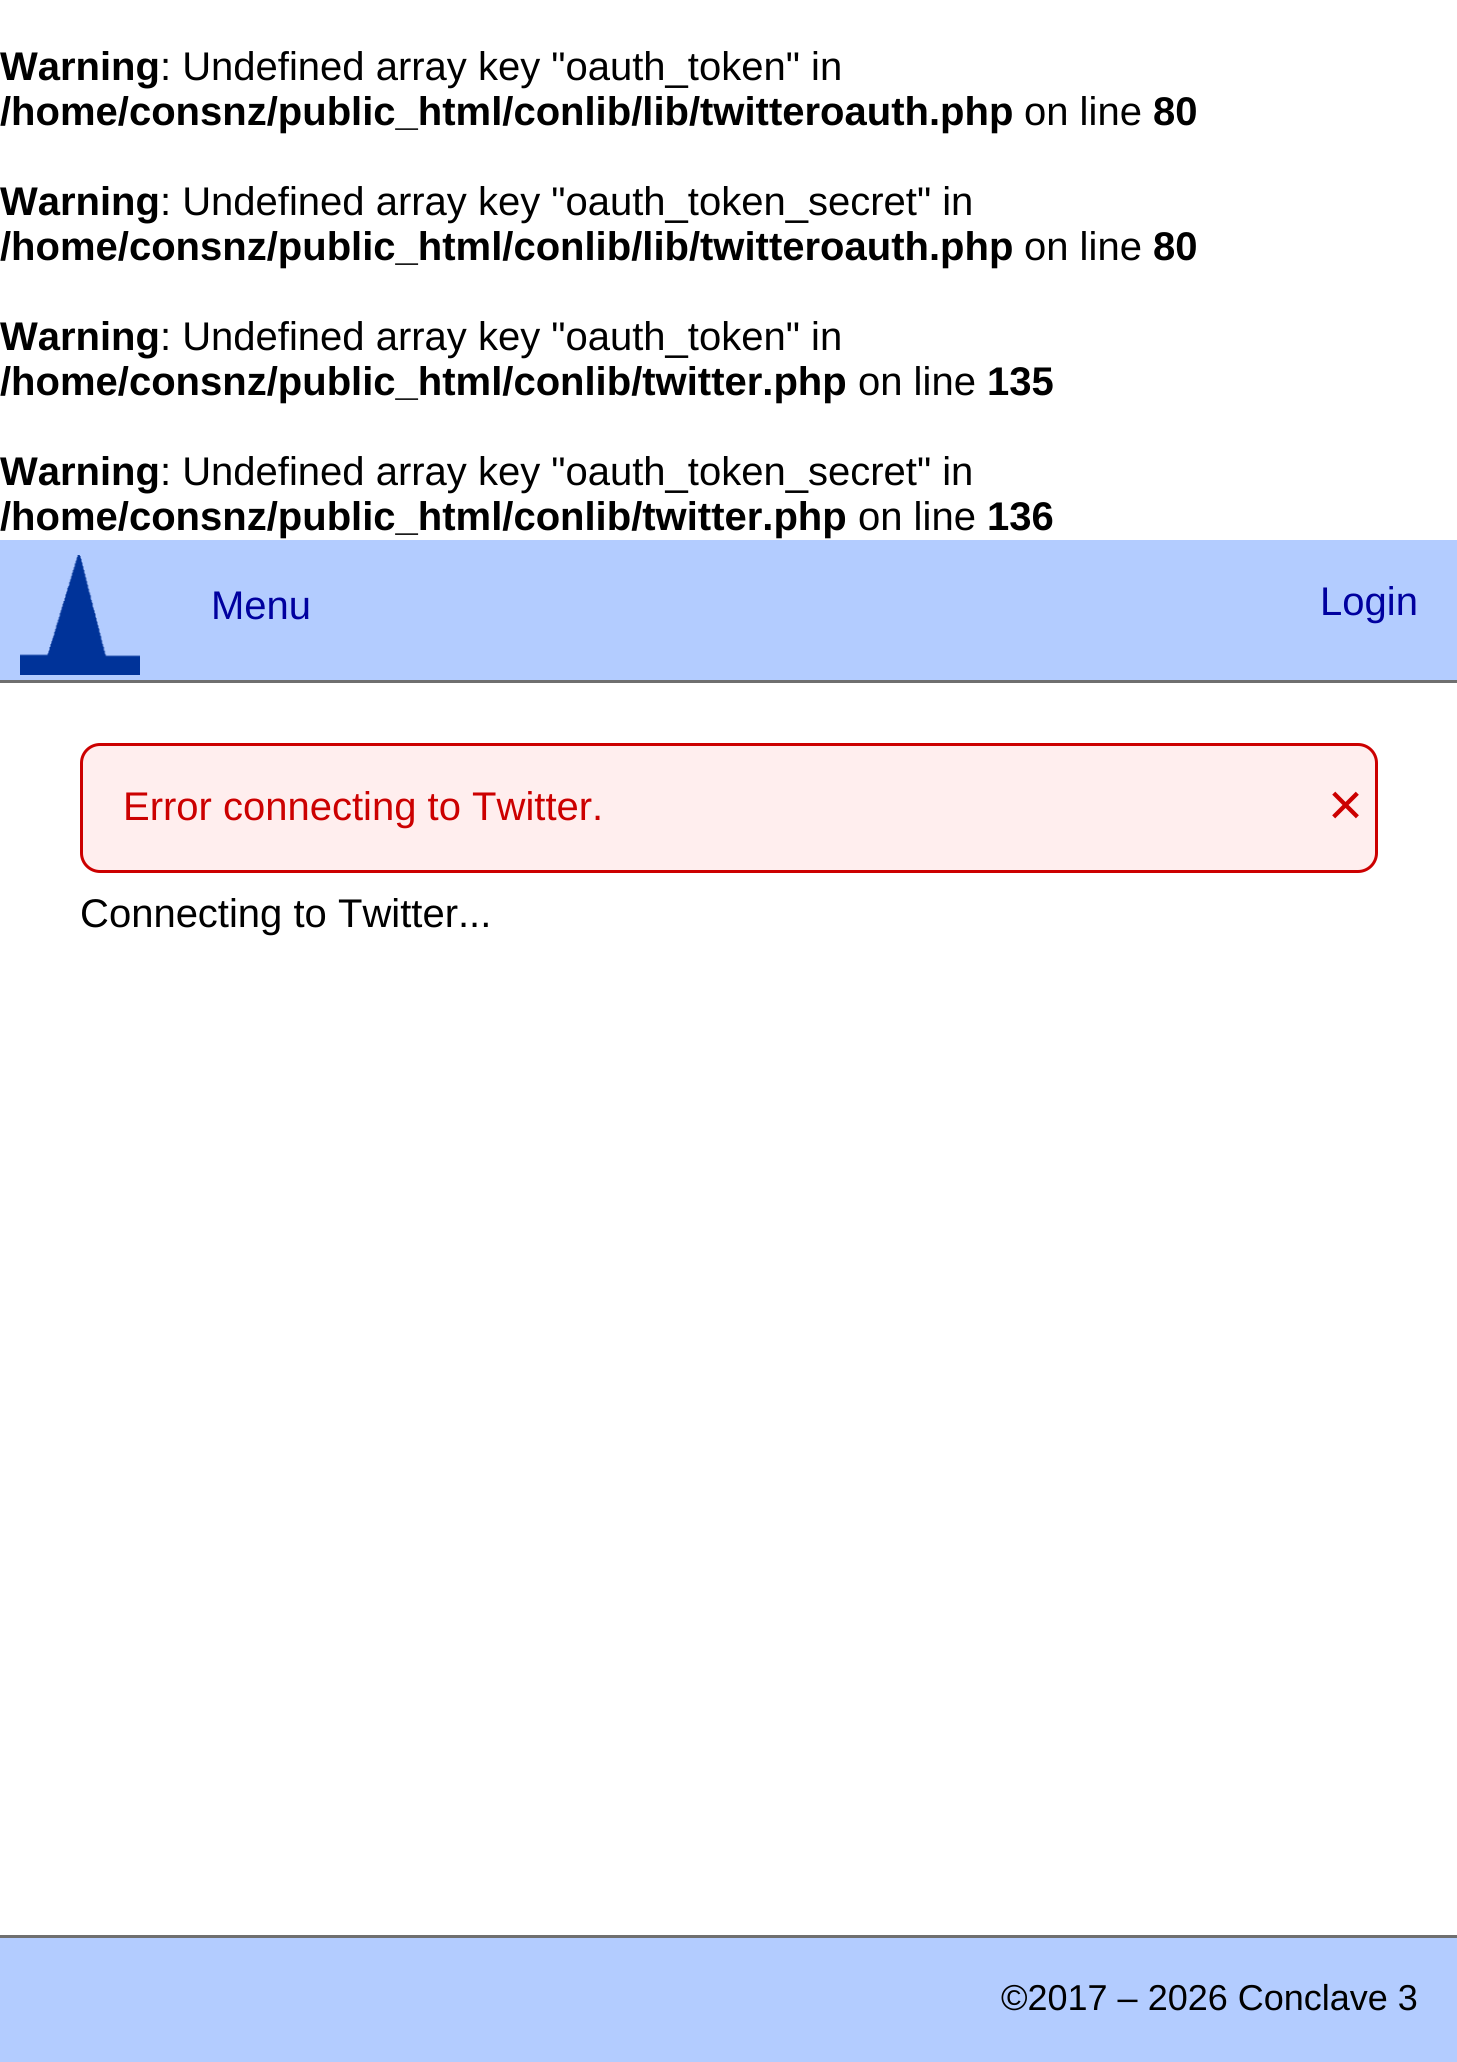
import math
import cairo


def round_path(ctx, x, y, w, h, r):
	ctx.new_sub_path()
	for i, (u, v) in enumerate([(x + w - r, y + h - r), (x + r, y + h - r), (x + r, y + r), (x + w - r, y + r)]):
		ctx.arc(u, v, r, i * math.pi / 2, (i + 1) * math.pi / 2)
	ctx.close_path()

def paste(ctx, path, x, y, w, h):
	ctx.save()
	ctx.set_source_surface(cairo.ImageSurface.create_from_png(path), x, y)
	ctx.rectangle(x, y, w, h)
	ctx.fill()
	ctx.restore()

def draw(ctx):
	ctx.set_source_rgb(1, 1, 1)
	ctx.paint()
	ctx.select_font_face('Liberation Sans', cairo.FONT_SLANT_NORMAL, cairo.FONT_WEIGHT_BOLD)
	ctx.set_font_size(40)
	ctx.set_source_rgb(0, 0, 0)
	ctx.move_to(0, 80)
	ctx.show_text('Warning')
	ctx.select_font_face('Liberation Sans')
	ctx.move_to(160, 80)
	ctx.show_text(': Undefined array key "oauth_token" in')
	ctx.select_font_face('Liberation Sans', cairo.FONT_SLANT_NORMAL, cairo.FONT_WEIGHT_BOLD)
	ctx.move_to(0, 125)
	ctx.show_text('/home/consnz/public_html/conlib/lib/twitteroauth.php')
	ctx.select_font_face('Liberation Sans')
	ctx.move_to(1024, 125)
	ctx.show_text('on line')
	ctx.select_font_face('Liberation Sans', cairo.FONT_SLANT_NORMAL, cairo.FONT_WEIGHT_BOLD)
	ctx.move_to(1153, 125)
	ctx.show_text('80')
	ctx.move_to(0, 215)
	ctx.show_text('Warning')
	ctx.select_font_face('Liberation Sans')
	ctx.move_to(160, 215)
	ctx.show_text(': Undefined array key "oauth_token_secret" in')
	ctx.select_font_face('Liberation Sans', cairo.FONT_SLANT_NORMAL, cairo.FONT_WEIGHT_BOLD)
	ctx.move_to(0, 260)
	ctx.show_text('/home/consnz/public_html/conlib/lib/twitteroauth.php')
	ctx.select_font_face('Liberation Sans')
	ctx.move_to(1024, 260)
	ctx.show_text('on line')
	ctx.select_font_face('Liberation Sans', cairo.FONT_SLANT_NORMAL, cairo.FONT_WEIGHT_BOLD)
	ctx.move_to(1153, 260)
	ctx.show_text('80')
	ctx.move_to(0, 350)
	ctx.show_text('Warning')
	ctx.select_font_face('Liberation Sans')
	ctx.move_to(160, 350)
	ctx.show_text(': Undefined array key "oauth_token" in')
	ctx.select_font_face('Liberation Sans', cairo.FONT_SLANT_NORMAL, cairo.FONT_WEIGHT_BOLD)
	ctx.move_to(0, 395)
	ctx.show_text('/home/consnz/public_html/conlib/twitter.php')
	ctx.select_font_face('Liberation Sans')
	ctx.move_to(858, 395)
	ctx.show_text('on line')
	ctx.select_font_face('Liberation Sans', cairo.FONT_SLANT_NORMAL, cairo.FONT_WEIGHT_BOLD)
	ctx.move_to(987, 395)
	ctx.show_text('135')
	ctx.move_to(0, 485)
	ctx.show_text('Warning')
	ctx.select_font_face('Liberation Sans')
	ctx.move_to(160, 485)
	ctx.show_text(': Undefined array key "oauth_token_secret" in')
	ctx.select_font_face('Liberation Sans', cairo.FONT_SLANT_NORMAL, cairo.FONT_WEIGHT_BOLD)
	ctx.move_to(0, 530)
	ctx.show_text('/home/consnz/public_html/conlib/twitter.php')
	ctx.select_font_face('Liberation Sans')
	ctx.move_to(858, 530)
	ctx.show_text('on line')
	ctx.select_font_face('Liberation Sans', cairo.FONT_SLANT_NORMAL, cairo.FONT_WEIGHT_BOLD)
	ctx.move_to(987, 530)
	ctx.show_text('136')
	ctx.set_source_rgb(0.702, 0.8, 1)
	ctx.rectangle(0, 540, 1457, 140)
	ctx.fill()
	ctx.set_source_rgb(0.435, 0.435, 0.435)
	ctx.rectangle(0, 680, 1457, 3)
	ctx.fill()
	paste(ctx, 'media/1.png', 20, 555, 120, 120)
	ctx.select_font_face('Liberation Sans')
	ctx.set_source_rgb(0, 0, 0.624)
	ctx.move_to(211, 619)
	ctx.show_text('Menu')
	ctx.move_to(1320, 615)
	ctx.show_text('Login')
	ctx.set_source_rgb(1, 0.933, 0.933)
	round_path(ctx, 81.5, 744.5, 1295, 127, 18.5)
	ctx.fill_preserve()
	ctx.set_source_rgb(0.8, 0, 0)
	ctx.set_line_width(3)
	ctx.stroke()
	ctx.move_to(123, 820)
	ctx.show_text('Error connecting to Twitter.')
	ctx.set_font_size(60)
	ctx.move_to(1328, 825)
	ctx.show_text('×')
	ctx.set_font_size(40)
	ctx.set_source_rgb(0, 0, 0)
	ctx.move_to(80, 927)
	ctx.show_text('Connecting to Twitter...')
	ctx.set_source_rgb(0.702, 0.8, 1)
	ctx.rectangle(0, 1938, 1457, 124)
	ctx.fill()
	ctx.set_source_rgb(0.435, 0.435, 0.435)
	ctx.rectangle(0, 1935, 1457, 3)
	ctx.fill()
	ctx.set_font_size(36)
	ctx.set_source_rgb(0, 0, 0)
	ctx.move_to(1001, 2010)
	ctx.show_text('©2017 – 2026 Conclave 3')


surface = cairo.ImageSurface(cairo.FORMAT_RGB24, 1457, 2062)
ctx = cairo.Context(surface)
options = cairo.FontOptions()
options.set_hint_metrics(cairo.HINT_METRICS_OFF)
options.set_hint_style(cairo.HINT_STYLE_NONE)
ctx.set_font_options(options)
ctx.set_miter_limit(4)
draw(ctx)
surface.write_to_png('image.png')
